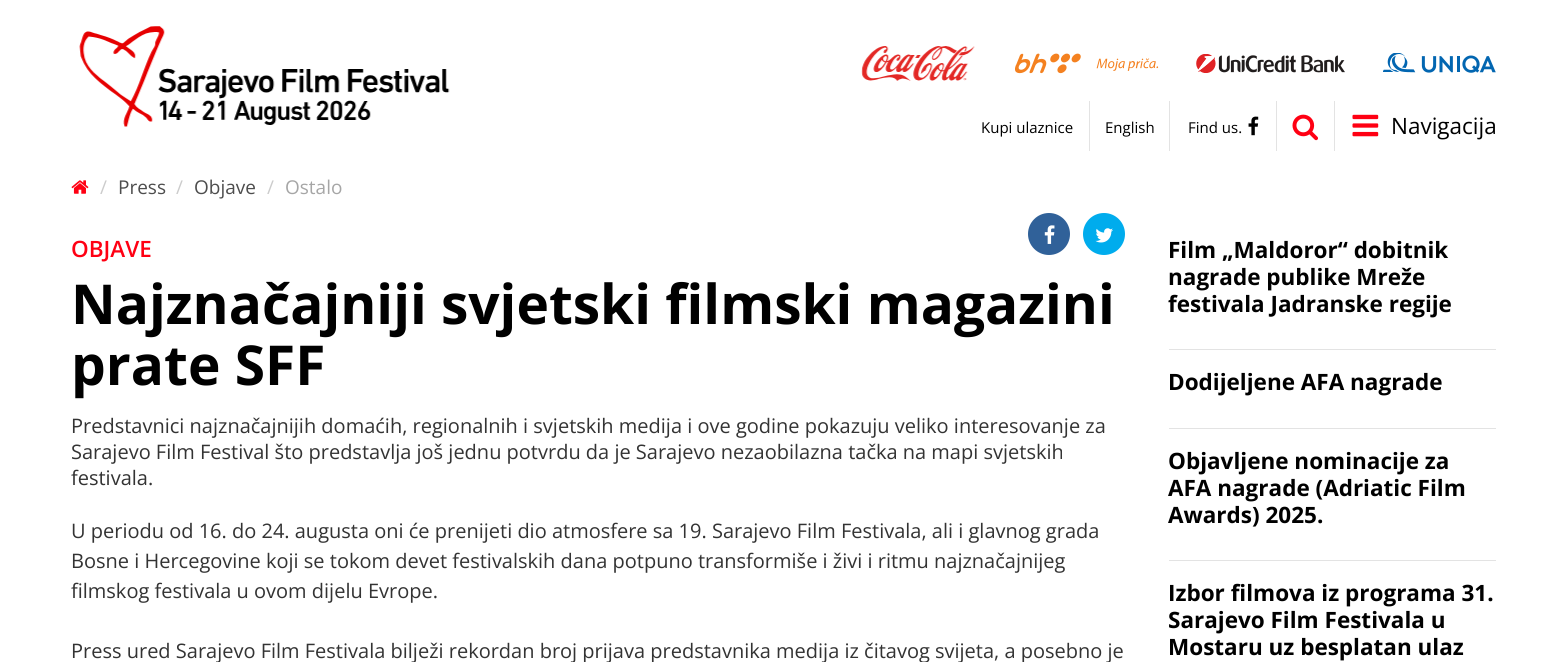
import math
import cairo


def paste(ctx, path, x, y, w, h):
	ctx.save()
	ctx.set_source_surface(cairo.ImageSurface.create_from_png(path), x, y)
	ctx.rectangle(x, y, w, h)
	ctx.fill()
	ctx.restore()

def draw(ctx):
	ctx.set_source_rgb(1, 1, 1)
	ctx.paint()
	paste(ctx, 'media/1.png', 79, 26, 371, 101)
	paste(ctx, 'media/2.png', 861, 46, 114, 35)
	paste(ctx, 'media/3.png', 1015, 53, 144, 21)
	paste(ctx, 'media/4.png', 1196, 54, 149, 19)
	paste(ctx, 'media/5.png', 1383, 53, 113, 20)
	ctx.set_source_rgb(0.89, 0.89, 0.89)
	ctx.rectangle(1089, 101, 1, 50)
	ctx.fill()
	ctx.select_font_face('Open Sans')
	ctx.set_font_size(15)
	ctx.set_source_rgb(0, 0, 0)
	ctx.move_to(981, 133)
	ctx.show_text('Kupi ulaznice')
	ctx.set_source_rgb(0.89, 0.89, 0.89)
	ctx.rectangle(1169, 101, 1, 50)
	ctx.fill()
	ctx.set_source_rgb(0, 0, 0)
	ctx.move_to(1105, 133)
	ctx.show_text('English')
	ctx.set_source_rgb(0.89, 0.89, 0.89)
	ctx.rectangle(1276, 101, 1, 50)
	ctx.fill()
	ctx.set_source_rgb(0, 0, 0)
	ctx.move_to(1188, 133)
	ctx.show_text('Find us.')
	paste(ctx, 'media/6.png', 1248, 116, 11, 20)
	ctx.set_source_rgb(0.89, 0.89, 0.89)
	ctx.rectangle(1334, 101, 1, 50)
	ctx.fill()
	paste(ctx, 'media/7.png', 1292, 114, 26, 27)
	paste(ctx, 'media/8.png', 1352, 114, 27, 23)
	ctx.set_font_size(22.5)
	ctx.set_source_rgb(0, 0, 0)
	ctx.move_to(1391, 134)
	ctx.show_text('Navigacija')
	paste(ctx, 'media/9.png', 71, 180, 18, 14)
	ctx.set_font_size(19)
	ctx.set_source_rgb(0.8, 0.8, 0.8)
	ctx.move_to(100, 194)
	ctx.show_text('/')
	ctx.set_source_rgb(0.302, 0.302, 0.302)
	ctx.move_to(118, 194)
	ctx.show_text('Press')
	ctx.set_source_rgb(0.8, 0.8, 0.8)
	ctx.move_to(176, 194)
	ctx.show_text('/')
	ctx.set_source_rgb(0.302, 0.302, 0.302)
	ctx.move_to(194, 194)
	ctx.show_text('Objave')
	ctx.set_source_rgb(0.8, 0.8, 0.8)
	ctx.move_to(267, 194)
	ctx.show_text('/')
	ctx.set_source_rgb(0.651, 0.651, 0.651)
	ctx.move_to(285, 194)
	ctx.show_text('Ostalo')
	ctx.select_font_face('Open Sans SemiBold')
	ctx.set_font_size(22.5)
	ctx.set_source_rgb(1, 0, 0.075)
	ctx.move_to(71, 257)
	ctx.show_text('OBJAVE')
	ctx.set_source_rgb(0.188, 0.38, 0.6)
	ctx.new_path()
	ctx.arc(1049, 234, 21, 0, 2 * math.pi)
	ctx.fill()
	paste(ctx, 'media/10.png', 1044, 225, 11, 19)
	ctx.set_source_rgb(0, 0.675, 0.929)
	ctx.arc(1104, 234, 21, 0, 2 * math.pi)
	ctx.fill()
	paste(ctx, 'media/11.png', 1095, 228, 18, 15)
	ctx.select_font_face('Open Sans', cairo.FONT_SLANT_NORMAL, cairo.FONT_WEIGHT_BOLD)
	ctx.set_font_size(55)
	ctx.set_source_rgb(0, 0, 0)
	ctx.move_to(71, 324)
	ctx.show_text('Najznačajniji svjetski filmski magazini')
	ctx.move_to(71, 385)
	ctx.show_text('prate SFF')
	ctx.select_font_face('Open Sans')
	ctx.set_font_size(20)
	ctx.set_source_rgb(0.2, 0.2, 0.2)
	for x, y, s in [
		(71, 433, 'Predstavnici najznačajnijih domaćih, regionalnih i svjetskih medija i ove godine pokazuju veliko interesovanje za'),
		(71, 459, 'Sarajevo Film Festival što predstavlja još jednu potvrdu da je Sarajevo nezaobilazna tačka na mapi svjetskih'),
		(71, 485, 'festivala.'),
		(71, 538, 'U periodu od 16. do 24. augusta oni će prenijeti dio atmosfere sa 19. Sarajevo Film Festivala, ali i glavnog grada'),
		(71, 568, 'Bosne i Hercegovine koji se tokom devet festivalskih dana potpuno transformiše i živi i ritmu najznačajnijeg'),
		(71, 598, 'filmskog festivala u ovom dijelu Evrope.'),
		(71, 658, 'Press ured Sarajevo Film Festivala bilježi rekordan broj prijava predstavnika medija iz čitavog svijeta, a posebno je'),
	]:
		ctx.move_to(x, y)
		ctx.show_text(s)
	ctx.set_source_rgb(0.89, 0.89, 0.89)
	ctx.rectangle(1169, 349, 327, 1)
	ctx.fill()
	ctx.select_font_face('Open Sans', cairo.FONT_SLANT_NORMAL, cairo.FONT_WEIGHT_BOLD)
	ctx.set_font_size(22.5)
	ctx.set_source_rgb(0, 0, 0)
	for x, y, s in [
		(1168, 258, 'Film „Maldoror“ dobitnik'),
		(1168, 285, 'nagrade publike Mreže'),
		(1168, 312, 'festivala Jadranske regije'),
	]:
		ctx.move_to(x, y)
		ctx.show_text(s)
	ctx.set_source_rgb(0.89, 0.89, 0.89)
	ctx.rectangle(1169, 428, 327, 1)
	ctx.fill()
	ctx.set_source_rgb(0, 0, 0)
	ctx.move_to(1168, 390)
	ctx.show_text('Dodijeljene AFA nagrade')
	ctx.set_source_rgb(0.89, 0.89, 0.89)
	ctx.rectangle(1169, 560, 327, 1)
	ctx.fill()
	ctx.set_source_rgb(0, 0, 0)
	for x, y, s in [
		(1168, 469, 'Objavljene nominacije za'),
		(1168, 496, 'AFA nagrade (Adriatic Film'),
		(1168, 523, 'Awards) 2025.'),
		(1168, 601, 'Izbor filmova iz programa 31.'),
		(1168, 628, 'Sarajevo Film Festivala u'),
		(1168, 655, 'Mostaru uz besplatan ulaz'),
	]:
		ctx.move_to(x, y)
		ctx.show_text(s)


surface = cairo.ImageSurface(cairo.FORMAT_RGB24, 1567, 662)
ctx = cairo.Context(surface)
options = cairo.FontOptions()
options.set_hint_metrics(cairo.HINT_METRICS_OFF)
options.set_hint_style(cairo.HINT_STYLE_NONE)
ctx.set_font_options(options)
ctx.set_miter_limit(4)
draw(ctx)
surface.write_to_png('image.png')
